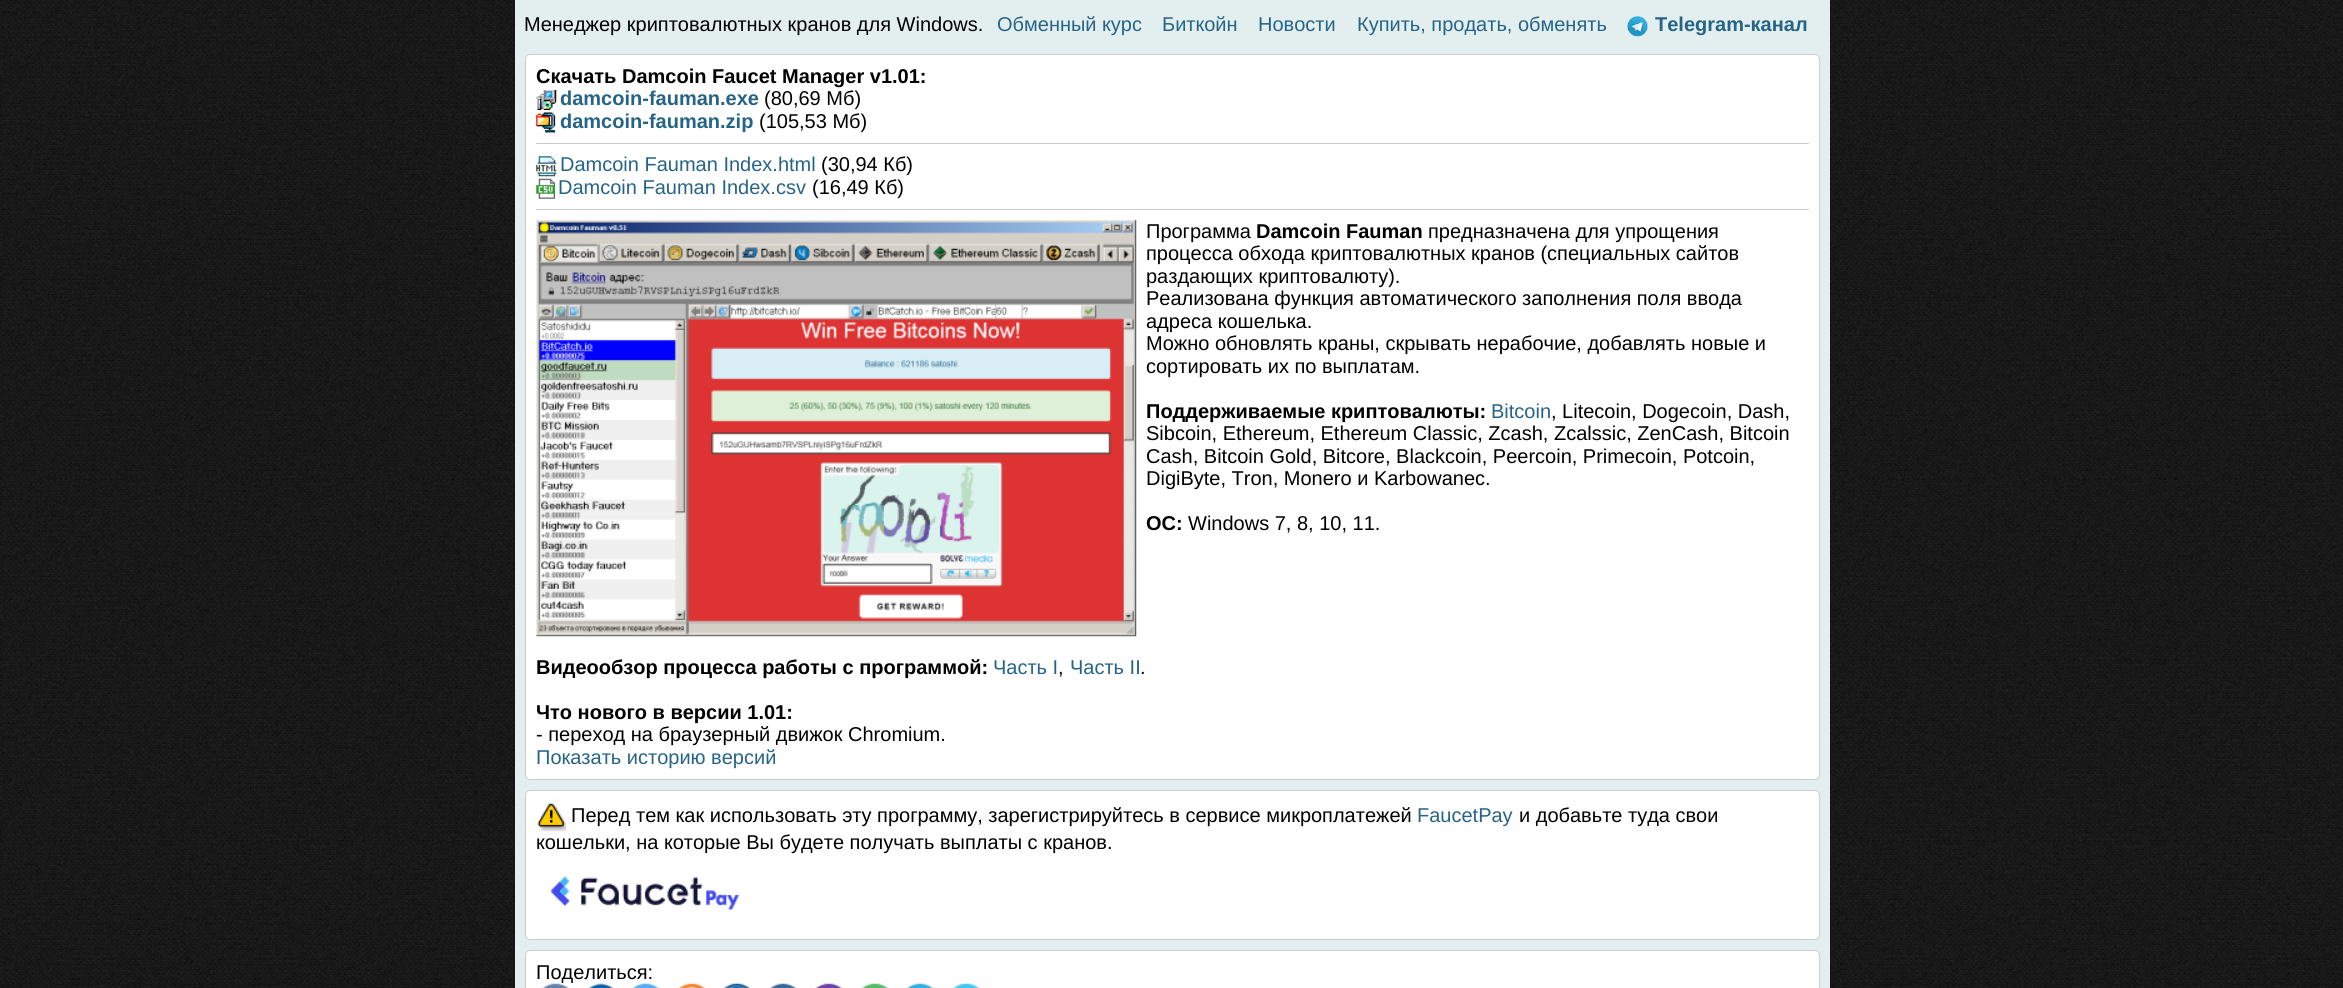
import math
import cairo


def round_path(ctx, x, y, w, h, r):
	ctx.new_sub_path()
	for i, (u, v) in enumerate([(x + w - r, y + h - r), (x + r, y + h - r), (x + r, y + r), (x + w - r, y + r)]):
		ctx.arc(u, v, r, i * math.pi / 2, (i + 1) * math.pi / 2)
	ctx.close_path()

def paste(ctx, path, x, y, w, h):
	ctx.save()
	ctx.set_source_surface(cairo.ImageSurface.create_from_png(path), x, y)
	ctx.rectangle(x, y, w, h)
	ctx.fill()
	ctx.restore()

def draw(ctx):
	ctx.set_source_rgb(1, 1, 1)
	ctx.paint()
	paste(ctx, 'media/1.png', 0, 0, 2343, 988)
	ctx.set_source_rgb(0.89, 0.937, 0.937)
	ctx.rectangle(515, 0, 1315, 988)
	ctx.fill()
	ctx.select_font_face('Liberation Sans')
	ctx.set_font_size(20)
	ctx.set_source_rgb(0, 0, 0)
	ctx.move_to(524, 31)
	ctx.show_text('Менеджер криптовалютных кранов для Windows.')
	ctx.set_source_rgb(0.149, 0.392, 0.529)
	for x, y, s in [
		(997, 31, 'Обменный курс'),
		(1162, 31, 'Биткойн'),
		(1258, 31, 'Новости'),
		(1357, 31, 'Купить, продать, обменять'),
	]:
		ctx.move_to(x, y)
		ctx.show_text(s)
	paste(ctx, 'media/2.png', 1627, 16, 21, 21)
	ctx.select_font_face('Liberation Sans', cairo.FONT_SLANT_NORMAL, cairo.FONT_WEIGHT_BOLD)
	ctx.move_to(1655, 31)
	ctx.show_text('Telegram-канал')
	ctx.set_source_rgb(1, 1, 1)
	round_path(ctx, 525.5, 54.5, 1294, 725, 4.5)
	ctx.fill_preserve()
	ctx.set_source_rgb(0.8, 0.8, 0.8)
	ctx.set_line_width(1)
	ctx.stroke()
	ctx.set_source_rgb(0, 0, 0)
	ctx.move_to(536, 83)
	ctx.show_text('Скачать Damcoin Faucet Manager v1.01:')
	paste(ctx, 'media/3.png', 536, 90, 21, 20)
	ctx.set_source_rgb(0.149, 0.392, 0.529)
	ctx.move_to(560, 105)
	ctx.show_text('damcoin-fauman.exe')
	ctx.select_font_face('Liberation Sans')
	ctx.set_source_rgb(0, 0, 0)
	ctx.move_to(764, 105)
	ctx.show_text('(80,69 Мб)')
	paste(ctx, 'media/4.png', 536, 112, 20, 21)
	ctx.select_font_face('Liberation Sans', cairo.FONT_SLANT_NORMAL, cairo.FONT_WEIGHT_BOLD)
	ctx.set_source_rgb(0.149, 0.392, 0.529)
	ctx.move_to(560, 128)
	ctx.show_text('damcoin-fauman.zip')
	ctx.select_font_face('Liberation Sans')
	ctx.set_source_rgb(0, 0, 0)
	ctx.move_to(759, 128)
	ctx.show_text('(105,53 Мб)')
	ctx.set_source_rgb(0.8, 0.8, 0.8)
	ctx.rectangle(536, 143, 1273, 1)
	ctx.fill()
	paste(ctx, 'media/5.png', 536, 156, 21, 21)
	ctx.set_source_rgb(0.149, 0.392, 0.529)
	ctx.move_to(560, 171)
	ctx.show_text('Damcoin Fauman Index.html')
	ctx.set_source_rgb(0, 0, 0)
	ctx.move_to(821, 171)
	ctx.show_text('(30,94 Кб)')
	paste(ctx, 'media/6.png', 536, 178, 19, 21)
	ctx.set_source_rgb(0.149, 0.392, 0.529)
	ctx.move_to(558, 194)
	ctx.show_text('Damcoin Fauman Index.csv')
	ctx.set_source_rgb(0, 0, 0)
	ctx.move_to(812, 194)
	ctx.show_text('(16,49 Кб)')
	ctx.set_source_rgb(0.8, 0.8, 0.8)
	ctx.rectangle(536, 209, 1273, 1)
	ctx.fill()
	paste(ctx, 'media/7.png', 536, 220, 601, 417)
	ctx.set_source_rgb(0, 0, 0)
	ctx.move_to(1146, 238)
	ctx.show_text('Программа')
	ctx.select_font_face('Liberation Sans', cairo.FONT_SLANT_NORMAL, cairo.FONT_WEIGHT_BOLD)
	ctx.move_to(1256, 238)
	ctx.show_text('Damcoin Fauman')
	ctx.select_font_face('Liberation Sans')
	for x, y, s in [
		(1428, 238, 'предназначена для упрощения'),
		(1146, 260, 'процесса обхода криптовалютных кранов (специальных сайтов'),
		(1146, 283, 'раздающих криптовалюту).'),
		(1146, 305, 'Реализована функция автоматического заполнения поля ввода'),
		(1146, 328, 'адреса кошелька.'),
		(1146, 350, 'Можно обновлять краны, скрывать нерабочие, добавлять новые и'),
		(1146, 373, 'сортировать их по выплатам.'),
	]:
		ctx.move_to(x, y)
		ctx.show_text(s)
	ctx.select_font_face('Liberation Sans', cairo.FONT_SLANT_NORMAL, cairo.FONT_WEIGHT_BOLD)
	ctx.move_to(1146, 418)
	ctx.show_text('Поддерживаемые криптовалюты:')
	ctx.select_font_face('Liberation Sans')
	ctx.set_source_rgb(0.149, 0.392, 0.529)
	ctx.move_to(1491, 418)
	ctx.show_text('Bitcoin')
	ctx.set_source_rgb(0, 0, 0)
	for x, y, s in [
		(1551, 418, ', Litecoin, Dogecoin, Dash,'),
		(1146, 440, 'Sibcoin, Ethereum, Ethereum Classic, Zcash, Zcalssic, ZenCash, Bitcoin'),
		(1146, 463, 'Cash, Bitcoin Gold, Bitcore, Blackcoin, Peercoin, Primecoin, Potcoin,'),
		(1146, 485, 'DigiByte, Tron, Monero и Karbowanec.'),
	]:
		ctx.move_to(x, y)
		ctx.show_text(s)
	ctx.select_font_face('Liberation Sans', cairo.FONT_SLANT_NORMAL, cairo.FONT_WEIGHT_BOLD)
	ctx.move_to(1146, 530)
	ctx.show_text('ОС:')
	ctx.select_font_face('Liberation Sans')
	ctx.move_to(1188, 530)
	ctx.show_text('Windows 7, 8, 10, 11.')
	ctx.select_font_face('Liberation Sans', cairo.FONT_SLANT_NORMAL, cairo.FONT_WEIGHT_BOLD)
	ctx.move_to(536, 674)
	ctx.show_text('Видеообзор процесса работы с программой:')
	ctx.select_font_face('Liberation Sans')
	ctx.set_source_rgb(0.149, 0.392, 0.529)
	ctx.move_to(993, 674)
	ctx.show_text('Часть I')
	ctx.set_source_rgb(0, 0, 0)
	ctx.move_to(1058, 674)
	ctx.show_text(',')
	ctx.set_source_rgb(0.149, 0.392, 0.529)
	ctx.move_to(1070, 674)
	ctx.show_text('Часть II')
	ctx.set_source_rgb(0, 0, 0)
	ctx.move_to(1140, 674)
	ctx.show_text('.')
	ctx.select_font_face('Liberation Sans', cairo.FONT_SLANT_NORMAL, cairo.FONT_WEIGHT_BOLD)
	ctx.move_to(536, 719)
	ctx.show_text('Что нового в версии 1.01:')
	ctx.select_font_face('Liberation Sans')
	ctx.move_to(536, 741)
	ctx.show_text('- переход на браузерный движок Chromium.')
	ctx.set_source_rgb(0.149, 0.392, 0.529)
	ctx.move_to(536, 764)
	ctx.show_text('Показать историю версий')
	ctx.set_source_rgb(1, 1, 1)
	round_path(ctx, 525.5, 790.5, 1294, 149, 4.5)
	ctx.fill_preserve()
	ctx.set_source_rgb(0.8, 0.8, 0.8)
	ctx.stroke()
	paste(ctx, 'media/8.png', 537, 803, 30, 29)
	ctx.set_source_rgb(0, 0, 0)
	ctx.move_to(571, 822)
	ctx.show_text('Перед тем как использовать эту программу, зарегистрируйтесь в сервисе микроплатежей')
	ctx.set_source_rgb(0.149, 0.392, 0.529)
	ctx.move_to(1417, 822)
	ctx.show_text('FaucetPay')
	ctx.set_source_rgb(0, 0, 0)
	ctx.move_to(1519, 822)
	ctx.show_text('и добавьте туда свои')
	ctx.move_to(536, 849)
	ctx.show_text('кошельки, на которые Вы будете получать выплаты с кранов.')
	paste(ctx, 'media/9.png', 551, 853, 188, 58)
	ctx.set_source_rgb(1, 1, 1)
	round_path(ctx, 525.5, 950.5, 1294, 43, 4.5)
	ctx.fill_preserve()
	ctx.set_source_rgb(0.8, 0.8, 0.8)
	ctx.stroke()
	ctx.set_source_rgb(0, 0, 0)
	ctx.move_to(536, 979)
	ctx.show_text('Поделиться:')
	paste(ctx, 'media/10.png', 542, 983, 27, 5)
	paste(ctx, 'media/11.png', 588, 983, 26, 5)
	paste(ctx, 'media/12.png', 632, 983, 27, 5)
	paste(ctx, 'media/13.png', 678, 983, 28, 5)
	paste(ctx, 'media/14.png', 723, 983, 28, 5)
	paste(ctx, 'media/15.png', 770, 983, 27, 5)
	paste(ctx, 'media/16.png', 815, 983, 28, 5)
	paste(ctx, 'media/17.png', 861, 983, 28, 5)
	paste(ctx, 'media/18.png', 906, 983, 28, 5)
	paste(ctx, 'media/19.png', 952, 983, 28, 5)


surface = cairo.ImageSurface(cairo.FORMAT_RGB24, 2343, 988)
ctx = cairo.Context(surface)
options = cairo.FontOptions()
options.set_hint_metrics(cairo.HINT_METRICS_OFF)
options.set_hint_style(cairo.HINT_STYLE_NONE)
ctx.set_font_options(options)
ctx.set_miter_limit(4)
draw(ctx)
surface.write_to_png('image.png')
